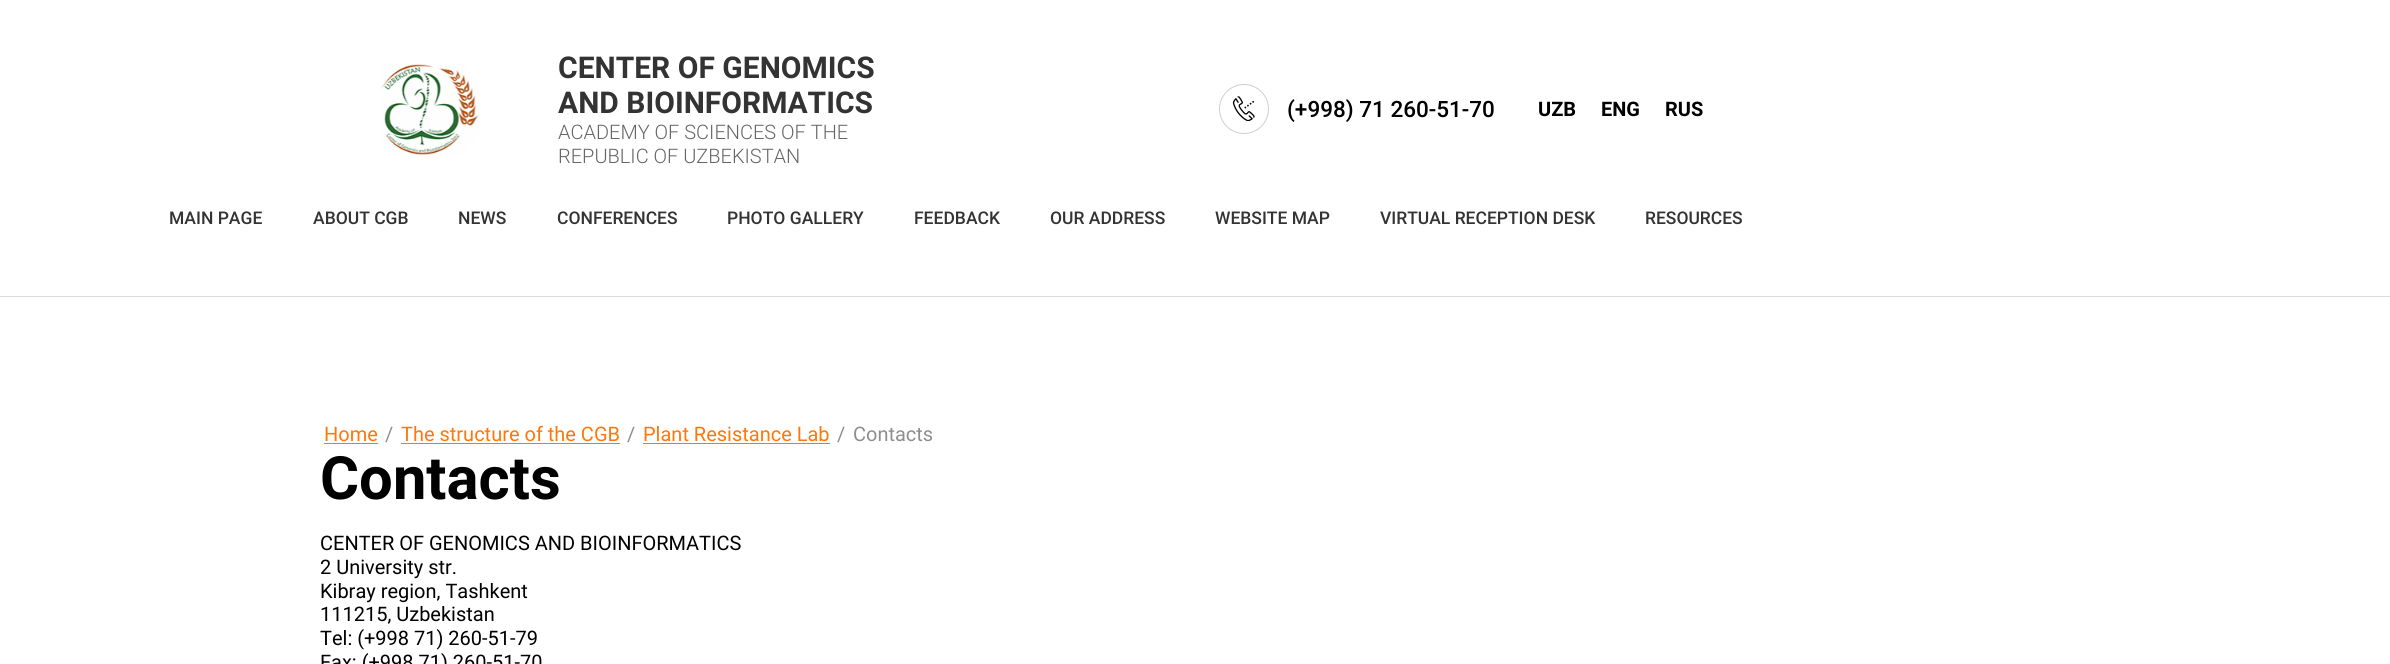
import math
import cairo


def paste(ctx, path, x, y, w, h):
	ctx.save()
	ctx.set_source_surface(cairo.ImageSurface.create_from_png(path), x, y)
	ctx.rectangle(x, y, w, h)
	ctx.fill()
	ctx.restore()

def draw(ctx):
	ctx.set_source_rgb(1, 1, 1)
	ctx.paint()
	paste(ctx, 'media/1.png', 381, 64, 98, 91)
	ctx.select_font_face('Roboto', cairo.FONT_SLANT_NORMAL, cairo.FONT_WEIGHT_BOLD)
	ctx.set_font_size(30)
	ctx.set_source_rgb(0.2, 0.2, 0.2)
	ctx.move_to(558, 78)
	ctx.show_text('CENTER OF GENOMICS')
	ctx.move_to(558, 113)
	ctx.show_text('AND BIOINFORMATICS')
	ctx.select_font_face('Roboto Light')
	ctx.set_font_size(20)
	ctx.set_source_rgb(0.4, 0.4, 0.4)
	ctx.move_to(558, 139)
	ctx.show_text('ACADEMY OF SCIENCES OF THE')
	ctx.move_to(558, 163)
	ctx.show_text('REPUBLIC OF UZBEKISTAN')
	ctx.new_path()
	ctx.arc(1244, 109, 24.5, 0, 2 * math.pi)
	ctx.set_source_rgb(0.812, 0.812, 0.812)
	ctx.set_line_width(1)
	ctx.stroke()
	paste(ctx, 'media/2.png', 1232, 96, 23, 25)
	ctx.select_font_face('Roboto Medium')
	ctx.set_font_size(22.5)
	ctx.set_source_rgb(0, 0, 0)
	ctx.move_to(1287, 117)
	ctx.show_text('(+998) 71 260-51-70')
	ctx.select_font_face('Roboto', cairo.FONT_SLANT_NORMAL, cairo.FONT_WEIGHT_BOLD)
	ctx.set_font_size(20)
	for x, y, s in [
		(1538, 116, 'UZB'),
		(1601, 116, 'ENG'),
		(1665, 116, 'RUS'),
	]:
		ctx.move_to(x, y)
		ctx.show_text(s)
	ctx.select_font_face('Roboto Medium')
	ctx.set_font_size(17.5)
	ctx.set_source_rgb(0.2, 0.2, 0.2)
	for x, y, s in [
		(169, 224, 'MAIN PAGE'),
		(313, 224, 'ABOUT CGB'),
		(458, 224, 'NEWS'),
		(557, 224, 'CONFERENCES'),
		(727, 224, 'PHOTO GALLERY'),
		(914, 224, 'FEEDBACK'),
		(1050, 224, 'OUR ADDRESS'),
		(1215, 224, 'WEBSITE MAP'),
		(1380, 224, 'VIRTUAL RECEPTION DESK'),
		(1645, 224, 'RESOURCES'),
	]:
		ctx.move_to(x, y)
		ctx.show_text(s)
	ctx.set_source_rgb(0.863, 0.863, 0.863)
	ctx.rectangle(0, 296, 2390, 1)
	ctx.fill()
	ctx.select_font_face('Roboto')
	ctx.set_font_size(20)
	ctx.set_source_rgb(1, 0.467, 0.035)
	ctx.move_to(324, 441)
	ctx.show_text('Home')
	ctx.rectangle(324, 443, 54, 1)
	ctx.fill()
	ctx.set_source_rgb(0.557, 0.557, 0.557)
	ctx.move_to(385, 441)
	ctx.show_text('/')
	ctx.set_source_rgb(1, 0.467, 0.035)
	ctx.move_to(401, 441)
	ctx.show_text('The structure of the CGB')
	ctx.rectangle(401, 443, 219, 1)
	ctx.fill()
	ctx.set_source_rgb(0.557, 0.557, 0.557)
	ctx.move_to(627, 441)
	ctx.show_text('/')
	ctx.set_source_rgb(1, 0.467, 0.035)
	ctx.move_to(643, 441)
	ctx.show_text('Plant Resistance Lab')
	ctx.rectangle(643, 443, 187, 1)
	ctx.fill()
	ctx.set_source_rgb(0.557, 0.557, 0.557)
	ctx.move_to(837, 441)
	ctx.show_text('/')
	ctx.move_to(853, 441)
	ctx.show_text('Contacts')
	ctx.select_font_face('Roboto', cairo.FONT_SLANT_NORMAL, cairo.FONT_WEIGHT_BOLD)
	ctx.set_font_size(59.75)
	ctx.set_source_rgb(0, 0, 0)
	ctx.move_to(320, 499)
	ctx.show_text('Contacts')
	ctx.select_font_face('Roboto')
	ctx.set_font_size(20)
	for x, y, s in [
		(320, 550, 'CENTER OF GENOMICS AND BIOINFORMATICS'),
		(320, 574, '2 University str.'),
		(320, 598, 'Kibray region, Tashkent'),
		(320, 621, '111215, Uzbekistan'),
		(320, 645, 'Tel: (+998 71) 260-51-79'),
		(320, 669, 'Fax: (+998 71) 260-51-70'),
	]:
		ctx.move_to(x, y)
		ctx.show_text(s)


surface = cairo.ImageSurface(cairo.FORMAT_RGB24, 2390, 664)
ctx = cairo.Context(surface)
options = cairo.FontOptions()
options.set_hint_metrics(cairo.HINT_METRICS_OFF)
options.set_hint_style(cairo.HINT_STYLE_NONE)
ctx.set_font_options(options)
ctx.set_miter_limit(4)
draw(ctx)
surface.write_to_png('image.png')
